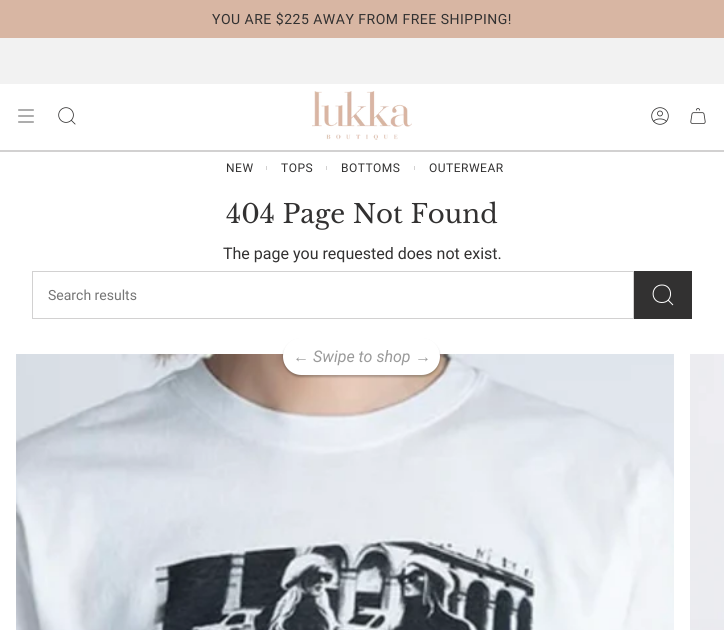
import math
import cairo


def write_spaced(ctx, x, y, s, letter, word):
	ctx.move_to(x, y)
	for ch in s:
		ctx.show_text(ch)
		ctx.rel_move_to(letter + word * (ch == ' '), 0)

def round_path(ctx, x, y, w, h, r):
	ctx.new_sub_path()
	for i, (u, v) in enumerate([(x + w - r, y + h - r), (x + r, y + h - r), (x + r, y + r), (x + w - r, y + r)]):
		ctx.arc(u, v, r, i * math.pi / 2, (i + 1) * math.pi / 2)
	ctx.close_path()

def blur_box(ctx, x, y, w, h, r, blur, alpha):
	ctx.push_group_with_content(cairo.CONTENT_ALPHA)
	ctx.set_operator(cairo.OPERATOR_SOURCE)
	for i in range(15, -16, -2):
		e = blur * i / 6
		if min(w, h) + 2 * e > 0:
			ctx.set_source_rgba(0, 0, 0, alpha * math.erfc((i - 1) / 8.5) / 2)
			round_path(ctx, x - e, y - e, w + 2 * e, h + 2 * e, max(0, min(r + e + blur * .6, min(w, h) / 2 + e)))
			ctx.fill()
	ctx.mask(ctx.pop_group())

def paste(ctx, path, x, y, w, h):
	ctx.save()
	ctx.set_source_surface(cairo.ImageSurface.create_from_png(path), x, y)
	ctx.rectangle(x, y, w, h)
	ctx.fill()
	ctx.restore()

def draw(ctx):
	ctx.set_source_rgb(1, 1, 1)
	ctx.paint()
	ctx.set_source_rgb(0.847, 0.714, 0.639)
	ctx.rectangle(0, 0, 724, 38)
	ctx.fill()
	ctx.select_font_face('Roboto')
	ctx.set_font_size(14)
	ctx.set_source_rgb(0.196, 0.192, 0.192)
	write_spaced(ctx, 212, 24, 'YOU ARE $225 AWAY FROM FREE SHIPPING!', 0.5, 0)
	ctx.set_source_rgb(0.949, 0.949, 0.949)
	ctx.rectangle(0, 38, 724, 46)
	ctx.fill()
	ctx.new_path()
	ctx.move_to(18.5, 110)
	ctx.line_to(33.5, 110)
	ctx.move_to(18.5, 116)
	ctx.line_to(33.5, 116)
	ctx.move_to(18.5, 122)
	ctx.line_to(33.5, 122)
	ctx.set_source_rgb(0.196, 0.192, 0.192)
	ctx.set_line_width(0.8)
	ctx.set_line_cap(cairo.LINE_CAP_ROUND)
	ctx.set_line_join(cairo.LINE_JOIN_ROUND)
	ctx.stroke()
	paste(ctx, 'media/1.png', 58, 107, 18, 18)
	paste(ctx, 'media/2.png', 312, 91, 100, 49)
	paste(ctx, 'media/3.png', 651, 107, 18, 18)
	paste(ctx, 'media/4.png', 690, 108, 16, 16)
	ctx.set_source_rgb(0.824, 0.82, 0.82)
	ctx.rectangle(0, 150, 724, 2)
	ctx.fill()
	ctx.set_font_size(12)
	ctx.set_source_rgb(0.196, 0.192, 0.192)
	write_spaced(ctx, 226, 172, 'NEW', 0.5, 0)
	ctx.set_source_rgb(0.824, 0.82, 0.82)
	ctx.rectangle(266, 166, 1, 4)
	ctx.fill()
	ctx.set_source_rgb(0.196, 0.192, 0.192)
	write_spaced(ctx, 281, 172, 'TOPS', 0.5, 0)
	ctx.set_source_rgb(0.824, 0.82, 0.82)
	ctx.rectangle(326, 166, 1, 4)
	ctx.fill()
	ctx.set_source_rgb(0.196, 0.192, 0.192)
	write_spaced(ctx, 341, 172, 'BOTTOMS', 0.5, 0)
	ctx.set_source_rgb(0.824, 0.82, 0.82)
	ctx.rectangle(414, 166, 1, 4)
	ctx.fill()
	ctx.set_source_rgb(0.196, 0.192, 0.192)
	write_spaced(ctx, 429, 172, 'OUTERWEAR', 0.5, 0)
	ctx.select_font_face('Libre Baskerville')
	ctx.set_font_size(26)
	ctx.move_to(226, 223)
	ctx.show_text('404 Page Not Found')
	ctx.select_font_face('Roboto')
	ctx.set_font_size(16)
	ctx.move_to(223, 259)
	ctx.show_text('The page you requested does not exist.')
	ctx.rectangle(32.5, 271.5, 601, 47)
	ctx.set_source_rgb(0.824, 0.82, 0.82)
	ctx.set_line_width(1)
	ctx.set_line_cap(cairo.LINE_CAP_BUTT)
	ctx.set_line_join(cairo.LINE_JOIN_MITER)
	ctx.stroke()
	ctx.set_font_size(14)
	ctx.set_source_rgb(0.459, 0.459, 0.459)
	ctx.move_to(48, 300)
	ctx.show_text('Search results')
	ctx.set_source_rgb(0.196, 0.192, 0.192)
	ctx.rectangle(634, 271, 58, 48)
	ctx.fill()
	ctx.new_path()
	ctx.move_to(662, 285)
	ctx.curve_to(673.5, 285, 673.5, 303, 661.5, 302.5)
	ctx.curve_to(650, 302, 650.5, 285, 662, 285)
	ctx.close_path()
	ctx.move_to(668, 300)
	ctx.line_to(673, 305)
	ctx.set_source_rgb(1, 1, 1)
	ctx.stroke()
	paste(ctx, 'media/5.png', 16, 354, 658, 276)
	ctx.set_source_rgb(0, 0, 0)
	blur_box(ctx, 283, 340, 157, 37, 18.5, 1, 0.25)
	ctx.set_source_rgb(1, 1, 1)
	round_path(ctx, 283, 338, 157, 37, 18.5)
	ctx.fill()
	ctx.select_font_face('Liberation Sans', cairo.FONT_SLANT_ITALIC)
	ctx.set_font_size(16)
	ctx.set_source_rgb(0.604, 0.604, 0.604)
	ctx.move_to(293, 362)
	ctx.show_text('←')
	ctx.select_font_face('Roboto', cairo.FONT_SLANT_ITALIC)
	ctx.move_to(313, 362)
	ctx.show_text('Swipe to shop')
	ctx.select_font_face('Liberation Sans', cairo.FONT_SLANT_ITALIC)
	ctx.move_to(415, 362)
	ctx.show_text('→')
	paste(ctx, 'media/6.png', 690, 354, 34, 276)


surface = cairo.ImageSurface(cairo.FORMAT_RGB24, 724, 630)
ctx = cairo.Context(surface)
options = cairo.FontOptions()
options.set_hint_metrics(cairo.HINT_METRICS_OFF)
options.set_hint_style(cairo.HINT_STYLE_NONE)
ctx.set_font_options(options)
ctx.set_miter_limit(4)
draw(ctx)
surface.write_to_png('image.png')
